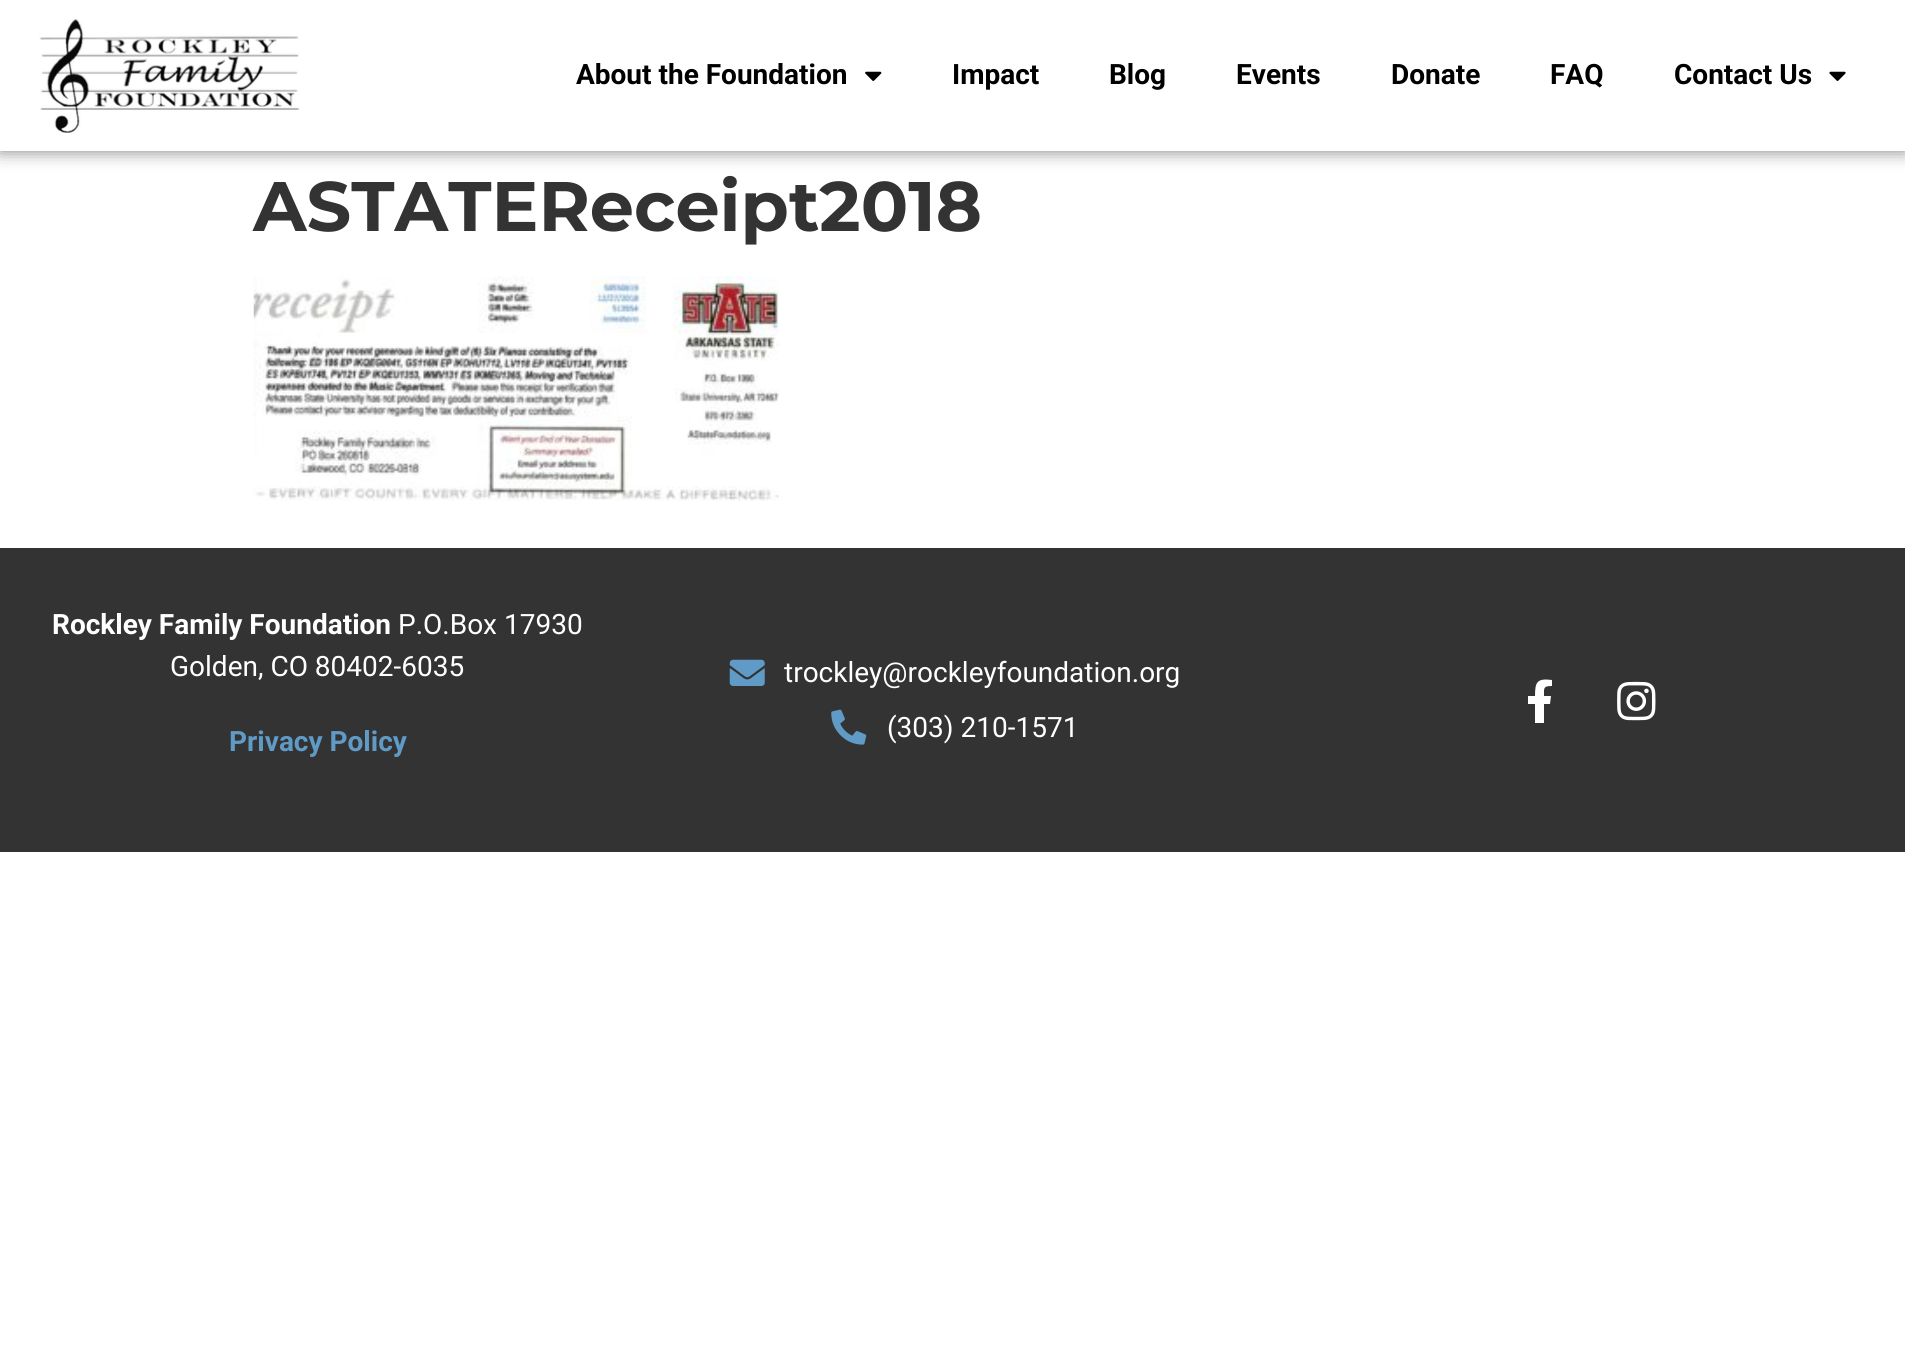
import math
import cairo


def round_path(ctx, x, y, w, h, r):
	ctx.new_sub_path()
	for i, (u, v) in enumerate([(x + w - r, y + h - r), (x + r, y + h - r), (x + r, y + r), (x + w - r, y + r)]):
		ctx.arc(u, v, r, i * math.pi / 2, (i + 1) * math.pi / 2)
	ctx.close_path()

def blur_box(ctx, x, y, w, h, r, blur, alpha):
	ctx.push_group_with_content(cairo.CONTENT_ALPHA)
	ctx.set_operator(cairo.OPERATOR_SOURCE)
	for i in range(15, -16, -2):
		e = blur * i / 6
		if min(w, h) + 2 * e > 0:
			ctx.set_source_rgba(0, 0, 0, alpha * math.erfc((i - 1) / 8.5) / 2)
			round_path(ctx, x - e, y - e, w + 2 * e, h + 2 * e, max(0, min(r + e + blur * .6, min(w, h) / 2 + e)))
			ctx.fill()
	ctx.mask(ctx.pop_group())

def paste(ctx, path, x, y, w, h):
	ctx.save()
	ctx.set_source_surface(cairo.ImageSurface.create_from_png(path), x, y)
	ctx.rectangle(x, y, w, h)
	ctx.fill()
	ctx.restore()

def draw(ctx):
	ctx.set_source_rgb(1, 1, 1)
	ctx.paint()
	ctx.save()
	ctx.set_fill_rule(cairo.FILL_RULE_EVEN_ODD)
	ctx.new_path()
	ctx.move_to(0, 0)
	ctx.line_to(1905, 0)
	ctx.line_to(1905, 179)
	ctx.line_to(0, 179)
	ctx.close_path()
	ctx.move_to(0, 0)
	ctx.line_to(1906, 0)
	ctx.line_to(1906, 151)
	ctx.line_to(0, 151)
	ctx.close_path()
	ctx.clip()
	ctx.set_source_rgb(0, 0, 0)
	blur_box(ctx, 0, 0, 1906, 151, 0, 9, 0.5)
	ctx.restore()
	paste(ctx, 'media/1.png', 39, 18, 261, 115)
	ctx.select_font_face('Roboto', cairo.FONT_SLANT_NORMAL, cairo.FONT_WEIGHT_BOLD)
	ctx.set_font_size(28)
	ctx.set_source_rgb(0, 0, 0)
	ctx.move_to(576, 84)
	ctx.show_text('About the Foundation')
	paste(ctx, 'media/2.png', 865, 71, 17, 10)
	for x, y, s in [
		(952, 84, 'Impact'),
		(1109, 84, 'Blog'),
		(1236, 84, 'Events'),
		(1391, 84, 'Donate'),
		(1550, 84, 'FAQ'),
		(1674, 84, 'Contact Us'),
	]:
		ctx.move_to(x, y)
		ctx.show_text(s)
	paste(ctx, 'media/3.png', 1829, 71, 17, 10)
	ctx.select_font_face('Montserrat', cairo.FONT_SLANT_NORMAL, cairo.FONT_WEIGHT_BOLD)
	ctx.set_font_size(70)
	ctx.set_source_rgb(0.2, 0.2, 0.2)
	ctx.move_to(253, 231)
	ctx.show_text('ASTATEReceipt2018')
	paste(ctx, 'media/4.png', 253, 276, 526, 225)
	ctx.rectangle(0, 548, 1905, 304)
	ctx.fill()
	ctx.select_font_face('Roboto', cairo.FONT_SLANT_NORMAL, cairo.FONT_WEIGHT_BOLD)
	ctx.set_font_size(28)
	ctx.set_source_rgb(1, 1, 1)
	ctx.move_to(52, 634)
	ctx.show_text('Rockley Family Foundation')
	ctx.select_font_face('Roboto')
	ctx.move_to(398, 634)
	ctx.show_text('P.O.Box 17930')
	ctx.move_to(170, 676)
	ctx.show_text('Golden, CO 80402-6035')
	ctx.select_font_face('Roboto', cairo.FONT_SLANT_NORMAL, cairo.FONT_WEIGHT_BOLD)
	ctx.set_source_rgb(0.373, 0.608, 0.776)
	ctx.move_to(229, 751)
	ctx.show_text('Privacy Policy')
	paste(ctx, 'media/5.png', 729, 659, 36, 27)
	ctx.select_font_face('Roboto')
	ctx.set_source_rgb(1, 1, 1)
	ctx.move_to(784, 682)
	ctx.show_text('trockley@rockleyfoundation.org')
	paste(ctx, 'media/6.png', 831, 709, 36, 36)
	ctx.move_to(887, 737)
	ctx.show_text('(303) 210-1571')
	ctx.new_path()
	ctx.move_to(1550, 704)
	ctx.line_to(1544, 704)
	ctx.line_to(1544, 723)
	ctx.line_to(1535, 723)
	ctx.line_to(1535, 704)
	ctx.line_to(1528, 704)
	ctx.line_to(1528, 696)
	ctx.line_to(1535, 696)
	ctx.curve_to(1535, 682, 1537, 678, 1552, 680)
	ctx.line_to(1552, 686)
	ctx.curve_to(1543, 686, 1544, 688, 1544, 696)
	ctx.line_to(1551, 696)
	ctx.close_path()
	ctx.fill()
	paste(ctx, 'media/7.png', 1617, 681, 39, 40)


surface = cairo.ImageSurface(cairo.FORMAT_RGB24, 1905, 1360)
ctx = cairo.Context(surface)
options = cairo.FontOptions()
options.set_hint_metrics(cairo.HINT_METRICS_OFF)
options.set_hint_style(cairo.HINT_STYLE_NONE)
ctx.set_font_options(options)
ctx.set_miter_limit(4)
draw(ctx)
surface.write_to_png('image.png')
